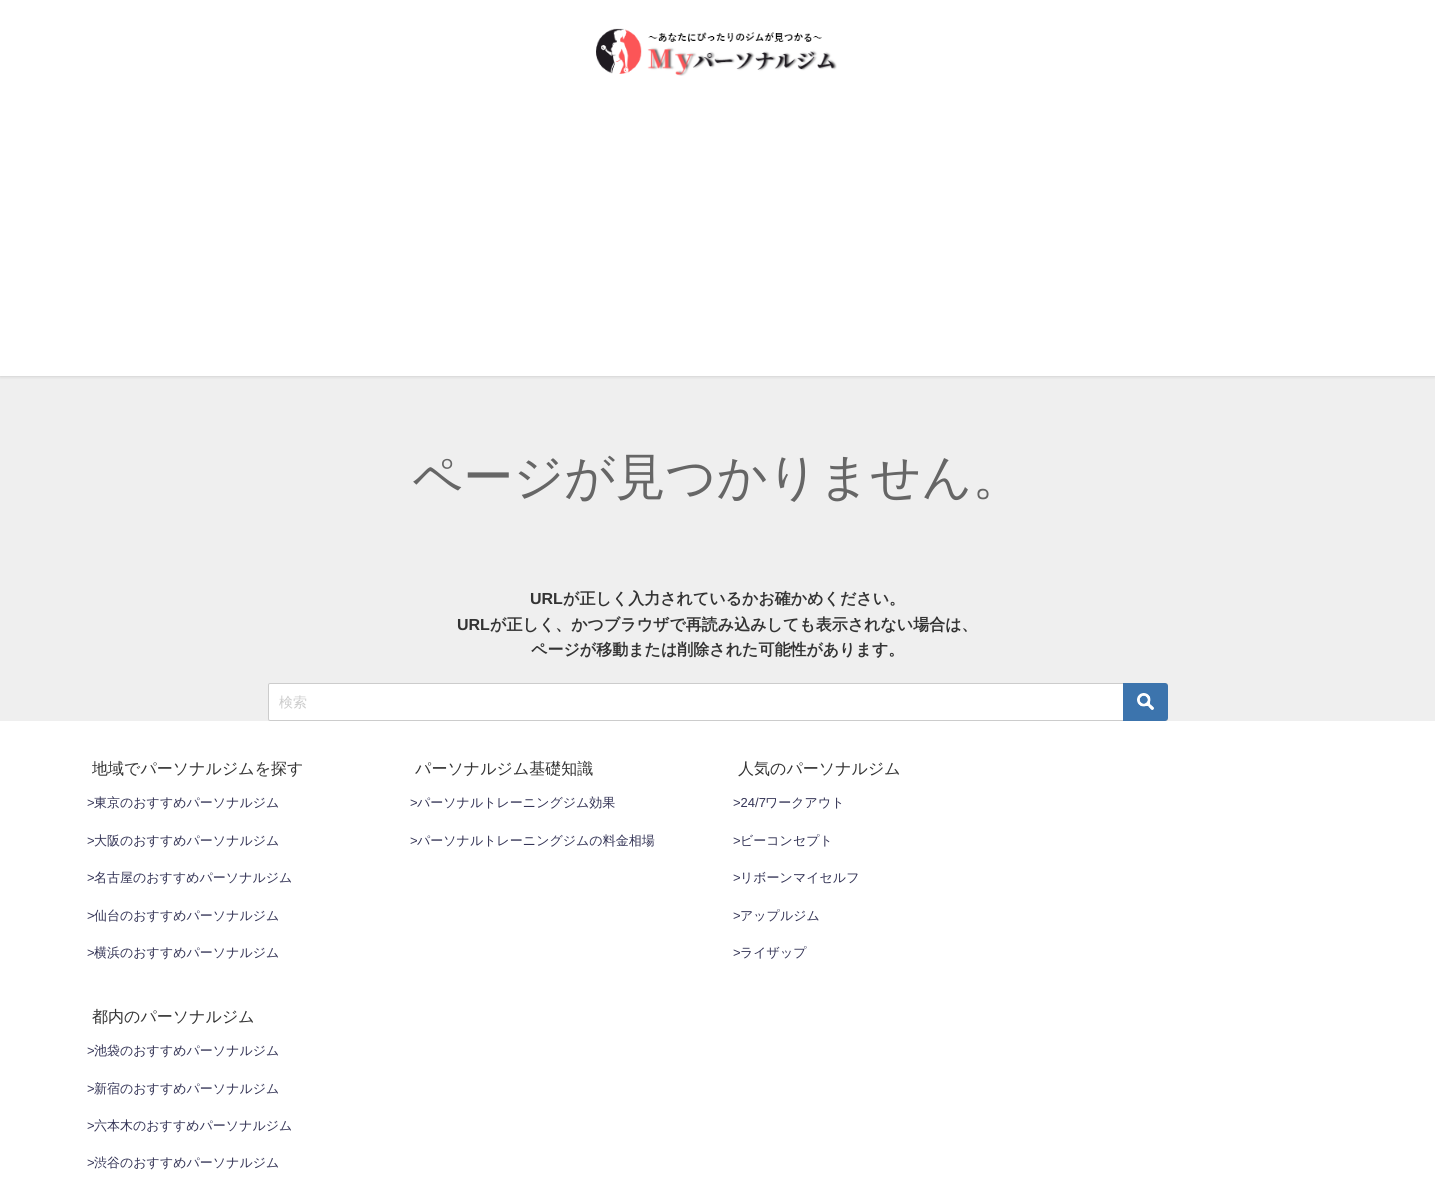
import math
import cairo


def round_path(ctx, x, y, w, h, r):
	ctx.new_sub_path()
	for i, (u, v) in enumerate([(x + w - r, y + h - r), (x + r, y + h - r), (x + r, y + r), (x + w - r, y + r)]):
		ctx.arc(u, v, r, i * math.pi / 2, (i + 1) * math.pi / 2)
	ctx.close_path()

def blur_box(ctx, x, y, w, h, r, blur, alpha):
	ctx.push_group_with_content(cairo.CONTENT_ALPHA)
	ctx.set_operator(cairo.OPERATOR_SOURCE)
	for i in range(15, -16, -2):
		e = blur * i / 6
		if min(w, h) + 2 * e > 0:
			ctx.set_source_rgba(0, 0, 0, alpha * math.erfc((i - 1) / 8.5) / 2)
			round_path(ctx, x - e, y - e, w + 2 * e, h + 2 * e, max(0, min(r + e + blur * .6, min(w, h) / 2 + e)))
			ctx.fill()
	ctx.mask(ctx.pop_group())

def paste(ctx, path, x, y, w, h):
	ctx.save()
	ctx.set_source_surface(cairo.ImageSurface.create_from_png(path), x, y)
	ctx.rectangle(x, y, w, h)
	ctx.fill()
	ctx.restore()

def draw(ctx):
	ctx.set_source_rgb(0.937, 0.937, 0.937)
	ctx.paint()
	ctx.set_source_rgb(0, 0, 0)
	blur_box(ctx, 0, 0, 1435, 376, 0, 2, 0.2)
	ctx.set_source_rgb(1, 1, 1)
	ctx.rectangle(0, 0, 1435, 376)
	ctx.fill()
	paste(ctx, 'media/1.png', 596, 28, 241, 48)
	ctx.select_font_face('WenQuanYi Zen Hei Medium')
	ctx.set_font_size(50)
	ctx.set_source_rgb(0.4, 0.4, 0.4)
	ctx.move_to(412, 494)
	ctx.show_text('ページが見つかりません。')
	ctx.select_font_face('Liberation Sans', cairo.FONT_SLANT_NORMAL, cairo.FONT_WEIGHT_BOLD)
	ctx.set_font_size(16)
	ctx.set_source_rgb(0.2, 0.2, 0.2)
	ctx.move_to(530, 604)
	ctx.show_text('URL')
	ctx.select_font_face('WenQuanYi Zen Hei', cairo.FONT_SLANT_NORMAL, cairo.FONT_WEIGHT_BOLD)
	ctx.move_to(563, 604)
	ctx.show_text('が正しく入力されているかお確かめください。')
	ctx.select_font_face('Liberation Sans', cairo.FONT_SLANT_NORMAL, cairo.FONT_WEIGHT_BOLD)
	ctx.move_to(457, 630)
	ctx.show_text('URL')
	ctx.select_font_face('WenQuanYi Zen Hei', cairo.FONT_SLANT_NORMAL, cairo.FONT_WEIGHT_BOLD)
	ctx.move_to(490, 630)
	ctx.show_text('が正しく、かつブラウザで再読み込みしても表示されない場合は、')
	ctx.move_to(531, 655)
	ctx.show_text('ページが移動または削除された可能性があります。')
	ctx.set_source_rgb(1, 1, 1)
	round_path(ctx, 268.5, 683.5, 899, 37, 1.5)
	ctx.fill_preserve()
	ctx.set_source_rgb(0.8, 0.8, 0.8)
	ctx.set_line_width(1)
	ctx.stroke()
	ctx.select_font_face('WenQuanYi Zen Hei Medium')
	ctx.set_font_size(14)
	ctx.move_to(279, 707)
	ctx.show_text('検索')
	ctx.set_source_rgb(0.235, 0.455, 0.678)
	ctx.new_path()
	ctx.move_to(1123, 683)
	ctx.line_to(1165, 683)
	ctx.curve_to(1166.5, 683, 1168, 684.5, 1168, 686)
	ctx.line_to(1168, 718)
	ctx.curve_to(1168, 719.5, 1166.5, 721, 1165, 721)
	ctx.line_to(1123, 721)
	ctx.close_path()
	ctx.fill()
	paste(ctx, 'media/2.png', 1137, 693, 17, 17)
	ctx.set_source_rgb(1, 1, 1)
	ctx.rectangle(0, 721, 1435, 475)
	ctx.fill()
	ctx.set_font_size(16)
	ctx.set_source_rgb(0.2, 0.2, 0.2)
	ctx.move_to(92, 774)
	ctx.show_text('地域でパーソナルジムを探す')
	ctx.select_font_face('Liberation Sans')
	ctx.set_font_size(13)
	ctx.set_source_rgb(0.2, 0.2, 0.333)
	ctx.move_to(87, 807)
	ctx.show_text('>')
	ctx.select_font_face('WenQuanYi Zen Hei Medium')
	ctx.move_to(94, 807)
	ctx.show_text('東京のおすすめパーソナルジム')
	ctx.select_font_face('Liberation Sans')
	ctx.move_to(87, 845)
	ctx.show_text('>')
	ctx.select_font_face('WenQuanYi Zen Hei Medium')
	ctx.move_to(94, 845)
	ctx.show_text('大阪のおすすめパーソナルジム')
	ctx.select_font_face('Liberation Sans')
	ctx.move_to(87, 882)
	ctx.show_text('>')
	ctx.select_font_face('WenQuanYi Zen Hei Medium')
	ctx.move_to(94, 882)
	ctx.show_text('名古屋のおすすめパーソナルジム')
	ctx.select_font_face('Liberation Sans')
	ctx.move_to(87, 920)
	ctx.show_text('>')
	ctx.select_font_face('WenQuanYi Zen Hei Medium')
	ctx.move_to(94, 920)
	ctx.show_text('仙台のおすすめパーソナルジム')
	ctx.select_font_face('Liberation Sans')
	ctx.move_to(87, 957)
	ctx.show_text('>')
	ctx.select_font_face('WenQuanYi Zen Hei Medium')
	ctx.move_to(94, 957)
	ctx.show_text('横浜のおすすめパーソナルジム')
	ctx.set_font_size(16)
	ctx.set_source_rgb(0.2, 0.2, 0.2)
	ctx.move_to(92, 1022)
	ctx.show_text('都内のパーソナルジム')
	ctx.select_font_face('Liberation Sans')
	ctx.set_font_size(13)
	ctx.set_source_rgb(0.2, 0.2, 0.333)
	ctx.move_to(87, 1055)
	ctx.show_text('>')
	ctx.select_font_face('WenQuanYi Zen Hei Medium')
	ctx.move_to(94, 1055)
	ctx.show_text('池袋のおすすめパーソナルジム')
	ctx.select_font_face('Liberation Sans')
	ctx.move_to(87, 1093)
	ctx.show_text('>')
	ctx.select_font_face('WenQuanYi Zen Hei Medium')
	ctx.move_to(94, 1093)
	ctx.show_text('新宿のおすすめパーソナルジム')
	ctx.select_font_face('Liberation Sans')
	ctx.move_to(87, 1130)
	ctx.show_text('>')
	ctx.select_font_face('WenQuanYi Zen Hei Medium')
	ctx.move_to(94, 1130)
	ctx.show_text('六本木のおすすめパーソナルジム')
	ctx.select_font_face('Liberation Sans')
	ctx.move_to(87, 1167)
	ctx.show_text('>')
	ctx.select_font_face('WenQuanYi Zen Hei Medium')
	ctx.move_to(94, 1167)
	ctx.show_text('渋谷のおすすめパーソナルジム')
	ctx.set_font_size(16)
	ctx.set_source_rgb(0.2, 0.2, 0.2)
	ctx.move_to(415, 774)
	ctx.show_text('パーソナルジム基礎知識')
	ctx.select_font_face('Liberation Sans')
	ctx.set_font_size(13)
	ctx.set_source_rgb(0.2, 0.2, 0.333)
	ctx.move_to(410, 807)
	ctx.show_text('>')
	ctx.select_font_face('WenQuanYi Zen Hei Medium')
	ctx.move_to(417, 807)
	ctx.show_text('パーソナルトレーニングジム効果')
	ctx.select_font_face('Liberation Sans')
	ctx.move_to(410, 845)
	ctx.show_text('>')
	ctx.select_font_face('WenQuanYi Zen Hei Medium')
	ctx.move_to(417, 845)
	ctx.show_text('パーソナルトレーニングジムの料金相場')
	ctx.set_font_size(16)
	ctx.set_source_rgb(0.2, 0.2, 0.2)
	ctx.move_to(738, 774)
	ctx.show_text('人気のパーソナルジム')
	ctx.select_font_face('Liberation Sans')
	ctx.set_font_size(13)
	ctx.set_source_rgb(0.2, 0.2, 0.333)
	ctx.move_to(733, 807)
	ctx.show_text('>24/7')
	ctx.select_font_face('WenQuanYi Zen Hei Medium')
	ctx.move_to(765, 807)
	ctx.show_text('ワークアウト')
	ctx.select_font_face('Liberation Sans')
	ctx.move_to(733, 845)
	ctx.show_text('>')
	ctx.select_font_face('WenQuanYi Zen Hei Medium')
	ctx.move_to(740, 845)
	ctx.show_text('ビーコンセプト')
	ctx.select_font_face('Liberation Sans')
	ctx.move_to(733, 882)
	ctx.show_text('>')
	ctx.select_font_face('WenQuanYi Zen Hei Medium')
	ctx.move_to(740, 882)
	ctx.show_text('リボーンマイセルフ')
	ctx.select_font_face('Liberation Sans')
	ctx.move_to(733, 920)
	ctx.show_text('>')
	ctx.select_font_face('WenQuanYi Zen Hei Medium')
	ctx.move_to(740, 920)
	ctx.show_text('アップルジム')
	ctx.select_font_face('Liberation Sans')
	ctx.move_to(733, 957)
	ctx.show_text('>')
	ctx.select_font_face('WenQuanYi Zen Hei Medium')
	ctx.move_to(740, 957)
	ctx.show_text('ライザップ')


surface = cairo.ImageSurface(cairo.FORMAT_RGB24, 1435, 1196)
ctx = cairo.Context(surface)
options = cairo.FontOptions()
options.set_hint_metrics(cairo.HINT_METRICS_OFF)
options.set_hint_style(cairo.HINT_STYLE_NONE)
ctx.set_font_options(options)
ctx.set_miter_limit(4)
draw(ctx)
surface.write_to_png('image.png')
